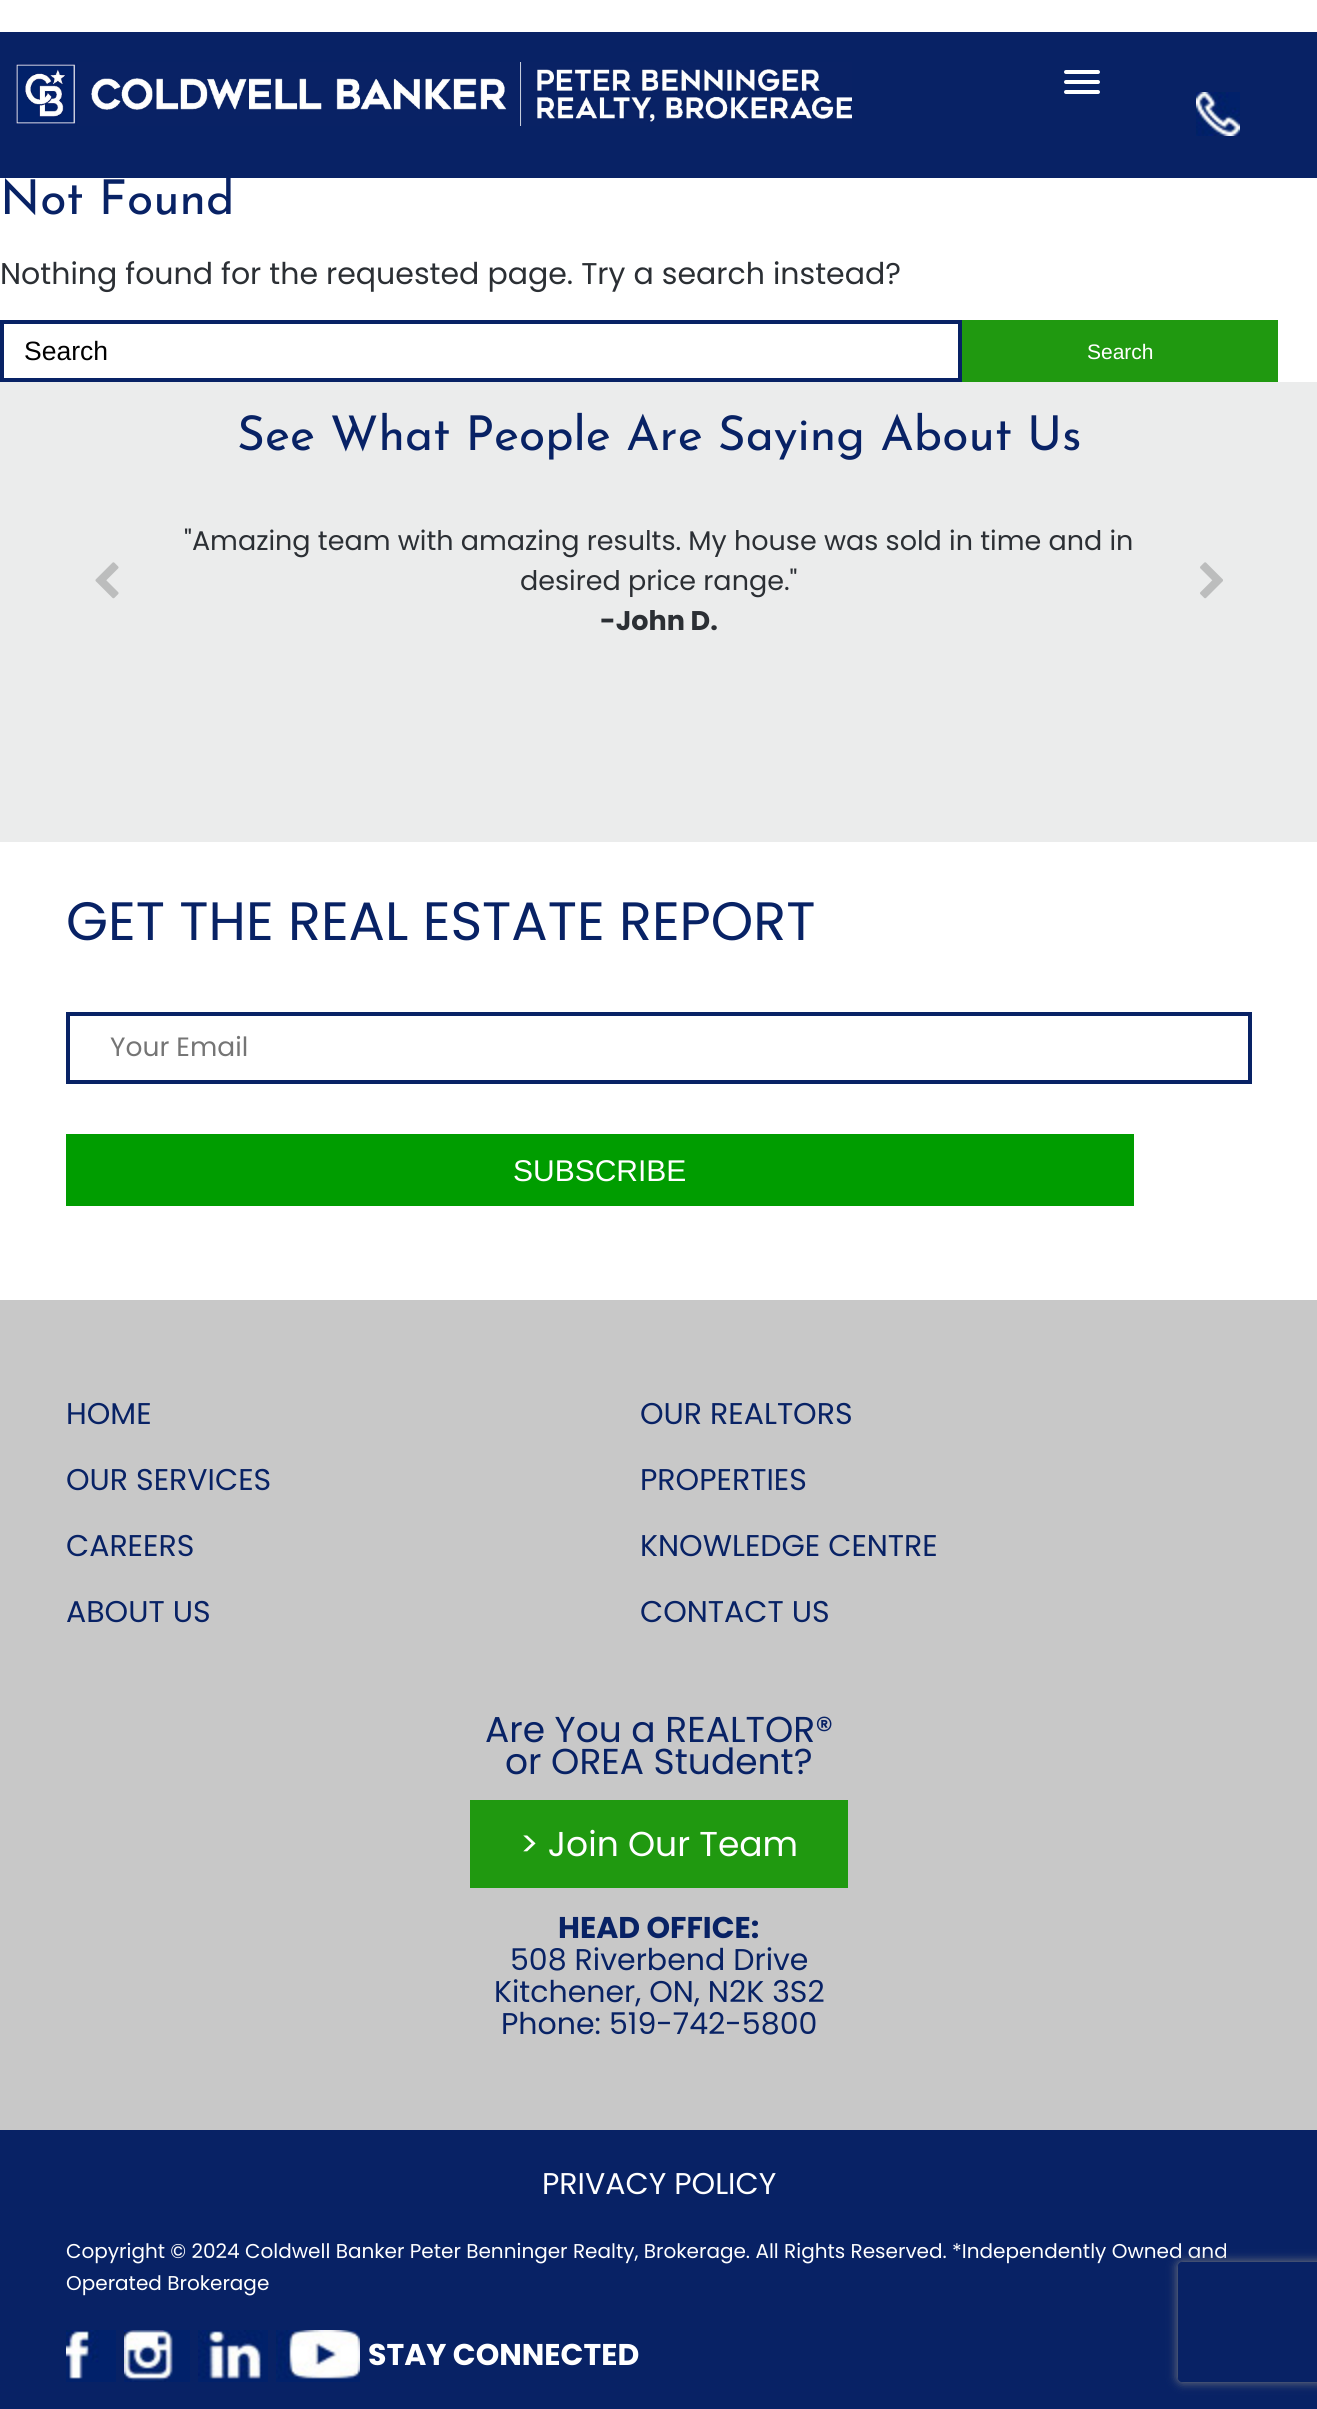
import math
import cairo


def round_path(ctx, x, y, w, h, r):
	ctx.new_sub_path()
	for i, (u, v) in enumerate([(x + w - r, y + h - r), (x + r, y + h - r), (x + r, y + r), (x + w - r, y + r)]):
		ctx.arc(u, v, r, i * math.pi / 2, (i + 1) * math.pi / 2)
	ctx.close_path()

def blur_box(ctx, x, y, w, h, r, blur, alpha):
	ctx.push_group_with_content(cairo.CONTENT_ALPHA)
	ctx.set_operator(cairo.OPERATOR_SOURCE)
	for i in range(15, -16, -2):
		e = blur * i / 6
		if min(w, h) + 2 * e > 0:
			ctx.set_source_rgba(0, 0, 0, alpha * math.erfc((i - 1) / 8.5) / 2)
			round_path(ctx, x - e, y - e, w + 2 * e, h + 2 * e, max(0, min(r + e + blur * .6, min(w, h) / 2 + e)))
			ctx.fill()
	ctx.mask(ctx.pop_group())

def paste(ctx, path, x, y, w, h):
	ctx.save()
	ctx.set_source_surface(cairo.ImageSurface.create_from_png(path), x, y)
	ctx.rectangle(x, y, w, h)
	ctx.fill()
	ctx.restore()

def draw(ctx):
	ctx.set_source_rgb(1, 1, 1)
	ctx.paint()
	ctx.set_source_rgb(0.035, 0.133, 0.396)
	ctx.rectangle(0, 32, 1317, 146)
	ctx.fill()
	paste(ctx, 'media/1.png', 16, 62, 836, 64)
	paste(ctx, 'media/2.png', 1196, 92, 44, 44)
	ctx.set_source_rgb(1, 1, 1)
	round_path(ctx, 1064, 70, 36, 4, 2)
	ctx.fill()
	round_path(ctx, 1064, 80, 36, 4, 2)
	ctx.fill()
	round_path(ctx, 1064, 90, 36, 4, 2)
	ctx.fill()
	ctx.select_font_face('Josefin Sans')
	ctx.set_font_size(48)
	ctx.set_source_rgb(0.035, 0.133, 0.396)
	ctx.move_to(0, 214)
	ctx.show_text('Not Found')
	ctx.select_font_face('Poppins')
	ctx.set_font_size(30)
	ctx.set_source_rgb(0.169, 0.184, 0.204)
	ctx.move_to(0, 284)
	ctx.show_text('Nothing found for the requested page. Try a search instead?')
	ctx.rectangle(2, 322, 958, 58)
	ctx.set_source_rgb(0.035, 0.133, 0.396)
	ctx.set_line_width(4)
	ctx.stroke()
	ctx.select_font_face('Liberation Sans')
	ctx.set_font_size(26.5)
	ctx.set_source_rgb(0, 0, 0)
	ctx.move_to(24, 360)
	ctx.show_text('Search')
	ctx.set_source_rgb(0.125, 0.6, 0.063)
	ctx.rectangle(962, 320, 316, 62)
	ctx.fill()
	ctx.set_font_size(21)
	ctx.set_source_rgb(1, 1, 1)
	ctx.move_to(1087, 359)
	ctx.show_text('Search')
	ctx.set_source_rgb(0.918, 0.922, 0.925)
	ctx.rectangle(0, 382, 1317, 460)
	ctx.fill()
	ctx.select_font_face('Josefin Sans')
	ctx.set_font_size(48)
	ctx.set_source_rgb(0.035, 0.133, 0.396)
	ctx.move_to(237, 450)
	ctx.show_text('See What People Are Saying About Us')
	ctx.select_font_face('Poppins')
	ctx.set_font_size(27)
	ctx.set_source_rgb(0.169, 0.184, 0.204)
	ctx.move_to(184, 550)
	ctx.show_text('"Amazing team with amazing results. My house was sold in time and in')
	ctx.move_to(520, 590)
	ctx.show_text('desired price range."')
	ctx.select_font_face('Poppins', cairo.FONT_SLANT_NORMAL, cairo.FONT_WEIGHT_BOLD)
	ctx.move_to(600, 630)
	ctx.show_text('-John D.')
	paste(ctx, 'media/3.png', 95, 562, 24, 37)
	paste(ctx, 'media/4.png', 1200, 562, 23, 37)
	ctx.select_font_face('Poppins')
	ctx.set_font_size(54)
	ctx.set_source_rgb(0.035, 0.133, 0.396)
	ctx.move_to(66, 940)
	ctx.show_text('GET THE REAL ESTATE REPORT')
	ctx.rectangle(68, 1014, 1182, 68)
	ctx.stroke()
	ctx.set_font_size(26.5)
	ctx.set_source_rgb(0.459, 0.459, 0.459)
	ctx.move_to(110, 1056)
	ctx.show_text('Your Email')
	ctx.set_source_rgb(0, 0.616, 0)
	ctx.rectangle(66, 1134, 1068, 72)
	ctx.fill()
	ctx.select_font_face('Liberation Sans')
	ctx.set_font_size(30)
	ctx.set_source_rgb(1, 1, 1)
	ctx.move_to(513, 1181)
	ctx.show_text('SUBSCRIBE')
	ctx.set_source_rgb(0.784, 0.784, 0.784)
	ctx.rectangle(0, 1300, 1317, 830)
	ctx.fill()
	ctx.select_font_face('Poppins')
	ctx.set_source_rgb(0.035, 0.133, 0.396)
	for x, y, s in [
		(66, 1424, 'HOME'),
		(640, 1424, 'OUR REALTORS'),
		(66, 1490, 'OUR SERVICES'),
		(640, 1490, 'PROPERTIES'),
		(66, 1556, 'CAREERS'),
		(640, 1556, 'KNOWLEDGE CENTRE'),
		(66, 1622, 'ABOUT US'),
		(640, 1622, 'CONTACT US'),
	]:
		ctx.move_to(x, y)
		ctx.show_text(s)
	ctx.set_font_size(36)
	ctx.move_to(485, 1742)
	ctx.show_text('Are You a REALTOR®')
	ctx.move_to(505, 1774)
	ctx.show_text('or OREA Student?')
	ctx.set_source_rgb(0.125, 0.6, 0.063)
	ctx.rectangle(470, 1800, 378, 88)
	ctx.fill()
	ctx.set_font_size(34.5)
	ctx.set_source_rgb(1, 1, 1)
	ctx.move_to(520, 1856)
	ctx.show_text('> Join Our Team')
	ctx.select_font_face('Poppins', cairo.FONT_SLANT_NORMAL, cairo.FONT_WEIGHT_BOLD)
	ctx.set_font_size(30)
	ctx.set_source_rgb(0.035, 0.133, 0.396)
	ctx.move_to(558, 1938)
	ctx.show_text('HEAD OFFICE:')
	ctx.select_font_face('Poppins')
	for x, y, s in [
		(510, 1970, '508 Riverbend Drive'),
		(494, 2002, 'Kitchener, ON, N2K 3S2'),
		(501, 2034, 'Phone: 519-742-5800'),
	]:
		ctx.move_to(x, y)
		ctx.show_text(s)
	ctx.rectangle(0, 2130, 1317, 279)
	ctx.fill()
	ctx.set_source_rgb(1, 1, 1)
	ctx.move_to(542, 2194)
	ctx.show_text('PRIVACY POLICY')
	ctx.set_font_size(20)
	ctx.move_to(66, 2258)
	ctx.show_text('Copyright © 2024 Coldwell Banker Peter Benninger Realty, Brokerage. All Rights Reserved. *Independently Owned and')
	ctx.move_to(66, 2290)
	ctx.show_text('Operated Brokerage')
	paste(ctx, 'media/5.png', 66, 2330, 50, 52)
	paste(ctx, 'media/6.png', 124, 2330, 66, 52)
	paste(ctx, 'media/7.png', 198, 2330, 70, 52)
	paste(ctx, 'media/8.png', 276, 2330, 84, 52)
	ctx.select_font_face('Poppins', cairo.FONT_SLANT_NORMAL, cairo.FONT_WEIGHT_BOLD)
	ctx.set_font_size(30)
	ctx.move_to(368, 2365)
	ctx.show_text('STAY CONNECTED')
	ctx.save()
	ctx.set_fill_rule(cairo.FILL_RULE_EVEN_ODD)
	ctx.new_path()
	ctx.move_to(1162, 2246)
	ctx.line_to(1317, 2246)
	ctx.line_to(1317, 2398)
	ctx.line_to(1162, 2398)
	ctx.close_path()
	ctx.move_to(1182, 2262)
	ctx.line_to(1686, 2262)
	ctx.curve_to(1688, 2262, 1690, 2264, 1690, 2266)
	ctx.line_to(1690, 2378)
	ctx.curve_to(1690, 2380, 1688, 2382, 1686, 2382)
	ctx.line_to(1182, 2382)
	ctx.curve_to(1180, 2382, 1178, 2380, 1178, 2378)
	ctx.line_to(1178, 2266)
	ctx.curve_to(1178, 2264, 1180, 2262, 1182, 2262)
	ctx.close_path()
	ctx.clip()
	ctx.set_source_rgb(0.502, 0.502, 0.502)
	blur_box(ctx, 1178, 2262, 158, 120, 4, 5, 1)
	ctx.restore()


surface = cairo.ImageSurface(cairo.FORMAT_RGB24, 1317, 2409)
ctx = cairo.Context(surface)
options = cairo.FontOptions()
options.set_hint_metrics(cairo.HINT_METRICS_OFF)
options.set_hint_style(cairo.HINT_STYLE_NONE)
ctx.set_font_options(options)
ctx.set_miter_limit(4)
draw(ctx)
surface.write_to_png('image.png')
